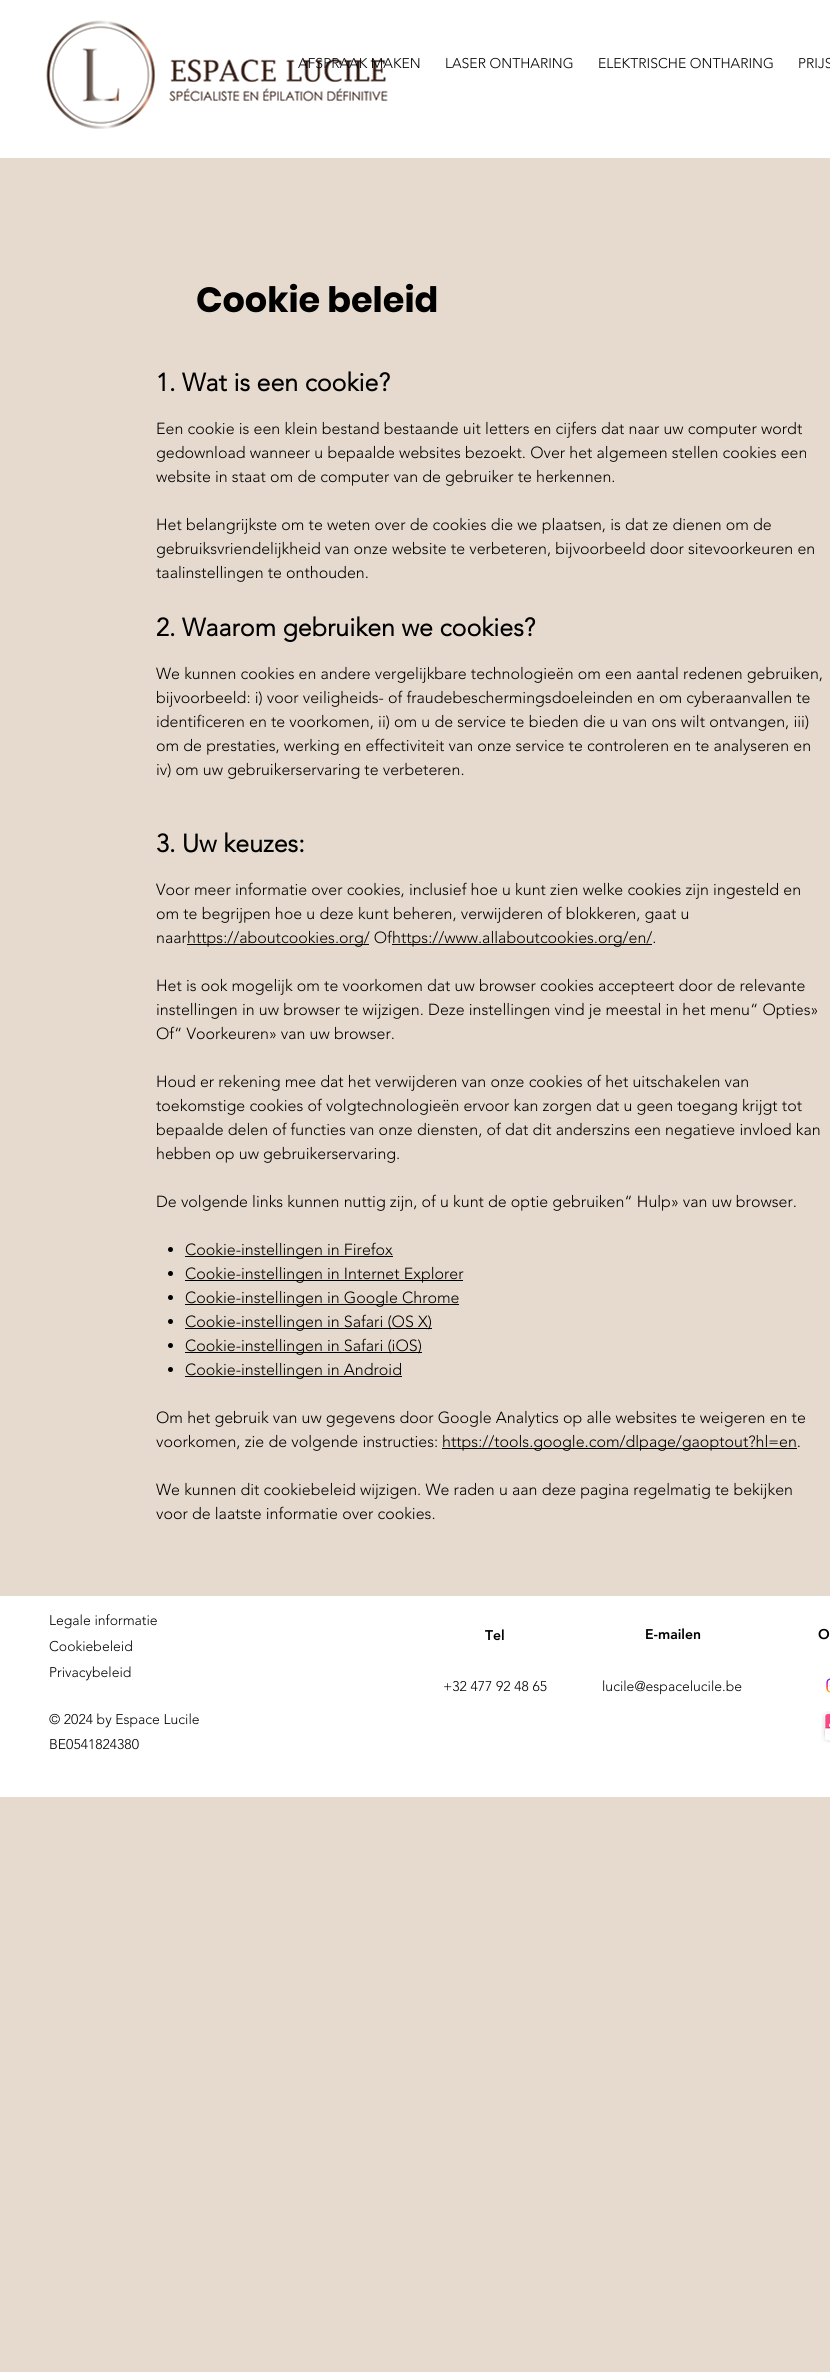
import math
import cairo


def paste(ctx, path, x, y, w, h):
	ctx.save()
	ctx.set_source_surface(cairo.ImageSurface.create_from_png(path), x, y)
	ctx.rectangle(x, y, w, h)
	ctx.fill()
	ctx.restore()

def draw(ctx):
	ctx.set_source_rgb(0.902, 0.855, 0.808)
	ctx.paint()
	ctx.set_source_rgb(1, 1, 1)
	ctx.rectangle(0, 0, 830, 158)
	ctx.fill()
	paste(ctx, 'media/1.png', 46, 20, 342, 109)
	ctx.select_font_face('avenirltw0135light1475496 Light')
	ctx.set_font_size(14)
	ctx.set_source_rgb(0, 0, 0)
	for x, y, s in [
		(298, 68, 'AFSPRAAK MAKEN'),
		(445, 68, 'LASER ONTHARING'),
		(598, 68, 'ELEKTRISCHE ONTHARING'),
		(798, 68, 'PRIJS'),
	]:
		ctx.move_to(x, y)
		ctx.show_text(s)
	ctx.select_font_face('Poppins', cairo.FONT_SLANT_NORMAL, cairo.FONT_WEIGHT_BOLD)
	ctx.set_font_size(35)
	ctx.move_to(196, 312)
	ctx.show_text('Cookie beleid')
	ctx.select_font_face('avenirltw0135light1475496', cairo.FONT_SLANT_NORMAL, cairo.FONT_WEIGHT_BOLD)
	ctx.set_font_size(25)
	ctx.move_to(156, 391)
	ctx.show_text('1. Wat is een cookie?')
	ctx.select_font_face('avenirltw0135light1475496 Light')
	ctx.set_font_size(16)
	for x, y, s in [
		(156, 434, 'Een cookie is een klein bestand bestaande uit letters en cijfers dat naar uw computer wordt'),
		(156, 458, 'gedownload wanneer u bepaalde websites bezoekt. Over het algemeen stellen cookies een'),
		(156, 482, 'website in staat om de computer van de gebruiker te herkennen.'),
		(156, 530, 'Het belangrijkste om te weten over de cookies die we plaatsen, is dat ze dienen om de'),
		(156, 554, 'gebruiksvriendelijkheid van onze website te verbeteren, bijvoorbeeld door sitevoorkeuren en'),
		(156, 578, 'taalinstellingen te onthouden.'),
	]:
		ctx.move_to(x, y)
		ctx.show_text(s)
	ctx.select_font_face('avenirltw0135light1475496', cairo.FONT_SLANT_NORMAL, cairo.FONT_WEIGHT_BOLD)
	ctx.set_font_size(25)
	ctx.move_to(156, 636)
	ctx.show_text('2. Waarom gebruiken we cookies?')
	ctx.select_font_face('avenirltw0135light1475496 Light')
	ctx.set_font_size(16)
	for x, y, s in [
		(156, 679, 'We kunnen cookies en andere vergelijkbare technologieën om een aantal redenen gebruiken,'),
		(156, 703, 'bijvoorbeeld: i) voor veiligheids- of fraudebeschermingsdoeleinden en om cyberaanvallen te'),
		(156, 727, 'identificeren en te voorkomen, ii) om u de service te bieden die u van ons wilt ontvangen, iii)'),
		(156, 751, 'om de prestaties, werking en effectiviteit van onze service te controleren en te analyseren en'),
		(156, 775, 'iv) om uw gebruikerservaring te verbeteren.'),
	]:
		ctx.move_to(x, y)
		ctx.show_text(s)
	ctx.select_font_face('avenirltw0135light1475496', cairo.FONT_SLANT_NORMAL, cairo.FONT_WEIGHT_BOLD)
	ctx.set_font_size(25)
	ctx.move_to(156, 852)
	ctx.show_text('3. Uw keuzes:')
	ctx.select_font_face('avenirltw0135light1475496 Light')
	ctx.set_font_size(16)
	for x, y, s in [
		(156, 895, 'Voor meer informatie over cookies, inclusief hoe u kunt zien welke cookies zijn ingesteld en'),
		(156, 919, 'om te begrijpen hoe u deze kunt beheren, verwijderen of blokkeren, gaat u'),
		(156, 943, 'naar'),
	]:
		ctx.move_to(x, y)
		ctx.show_text(s)
	ctx.rectangle(187, 944, 182, 1)
	ctx.fill()
	ctx.move_to(187, 943)
	ctx.show_text('https://aboutcookies.org/ Of')
	ctx.rectangle(392, 944, 260, 1)
	ctx.fill()
	for x, y, s in [
		(392, 943, 'https://www.allaboutcookies.org/en/.'),
		(156, 991, 'Het is ook mogelijk om te voorkomen dat uw browser cookies accepteert door de relevante'),
		(156, 1015, 'instellingen in uw browser te wijzigen. Deze instellingen vind je meestal in het menu“ Opties»'),
		(156, 1039, 'Of“ Voorkeuren» van uw browser.'),
		(156, 1087, 'Houd er rekening mee dat het verwijderen van onze cookies of het uitschakelen van'),
		(156, 1111, 'toekomstige cookies of volgtechnologieën ervoor kan zorgen dat u geen toegang krijgt tot'),
		(156, 1135, 'bepaalde delen of functies van onze diensten, of dat dit anderszins een negatieve invloed kan'),
		(156, 1159, 'hebben op uw gebruikerservaring.'),
		(156, 1207, 'De volgende links kunnen nuttig zijn, of u kunt de optie gebruiken“ Hulp» van uw browser.'),
	]:
		ctx.move_to(x, y)
		ctx.show_text(s)
	ctx.new_path()
	ctx.arc(170.5, 1249.5, 2.5, 0, 2 * math.pi)
	ctx.fill()
	ctx.rectangle(185, 1256, 208, 1)
	ctx.fill()
	ctx.move_to(185, 1255)
	ctx.show_text('Cookie-instellingen in Firefox')
	ctx.new_path()
	ctx.arc(170.5, 1273.5, 2.5, 0, 2 * math.pi)
	ctx.fill()
	ctx.rectangle(185, 1280, 278, 1)
	ctx.fill()
	ctx.move_to(185, 1279)
	ctx.show_text('Cookie-instellingen in Internet Explorer')
	ctx.new_path()
	ctx.arc(170.5, 1297.5, 2.5, 0, 2 * math.pi)
	ctx.fill()
	ctx.rectangle(185, 1304, 274, 1)
	ctx.fill()
	ctx.move_to(185, 1303)
	ctx.show_text('Cookie-instellingen in Google Chrome')
	ctx.new_path()
	ctx.arc(170.5, 1321.5, 2.5, 0, 2 * math.pi)
	ctx.fill()
	ctx.rectangle(185, 1328, 247, 1)
	ctx.fill()
	ctx.move_to(185, 1327)
	ctx.show_text('Cookie-instellingen in Safari (OS X)')
	ctx.new_path()
	ctx.arc(170.5, 1345.5, 2.5, 0, 2 * math.pi)
	ctx.fill()
	ctx.rectangle(185, 1352, 237, 1)
	ctx.fill()
	ctx.move_to(185, 1351)
	ctx.show_text('Cookie-instellingen in Safari (iOS)')
	ctx.new_path()
	ctx.arc(170.5, 1369.5, 2.5, 0, 2 * math.pi)
	ctx.fill()
	ctx.rectangle(185, 1376, 217, 1)
	ctx.fill()
	for x, y, s in [
		(185, 1375, 'Cookie-instellingen in Android'),
		(156, 1423, 'Om het gebruik van uw gegevens door Google Analytics op alle websites te weigeren en te'),
		(156, 1447, 'voorkomen, zie de volgende instructies:'),
	]:
		ctx.move_to(x, y)
		ctx.show_text(s)
	ctx.rectangle(442, 1448, 355, 1)
	ctx.fill()
	for x, y, s in [
		(442, 1447, 'https://tools.google.com/dlpage/gaoptout?hl=en.'),
		(156, 1495, 'We kunnen dit cookiebeleid wijzigen. We raden u aan deze pagina regelmatig te bekijken'),
		(156, 1519, 'voor de laatste informatie over cookies.'),
	]:
		ctx.move_to(x, y)
		ctx.show_text(s)
	ctx.set_source_rgb(1, 1, 1)
	ctx.rectangle(0, 1596, 830, 201)
	ctx.fill()
	ctx.set_font_size(14)
	ctx.set_source_rgb(0, 0, 0)
	for x, y, s in [
		(49, 1625, 'Legale informatie'),
		(49, 1651, 'Cookiebeleid'),
		(49, 1677, 'Privacybeleid'),
		(49, 1724, '© 2024 by Espace Lucile'),
		(49, 1749, 'BE0541824380'),
	]:
		ctx.move_to(x, y)
		ctx.show_text(s)
	ctx.select_font_face('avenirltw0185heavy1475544 Black')
	for x, y, s in [
		(485, 1640, 'Tel'),
		(645, 1639, 'E-mailen'),
		(818, 1639, 'O'),
	]:
		ctx.move_to(x, y)
		ctx.show_text(s)
	ctx.select_font_face('avenirltw0135light1475496 Light')
	ctx.move_to(443, 1691)
	ctx.show_text('+32 477 92 48 65')
	ctx.move_to(602, 1691)
	ctx.show_text('lucile@espacelucile.be')
	paste(ctx, 'media/2.png', 826, 1678, 4, 15)
	paste(ctx, 'media/3.png', 821, 1711, 9, 32)


surface = cairo.ImageSurface(cairo.FORMAT_RGB24, 830, 2372)
ctx = cairo.Context(surface)
options = cairo.FontOptions()
options.set_hint_metrics(cairo.HINT_METRICS_OFF)
options.set_hint_style(cairo.HINT_STYLE_NONE)
ctx.set_font_options(options)
ctx.set_miter_limit(4)
draw(ctx)
surface.write_to_png('image.png')
